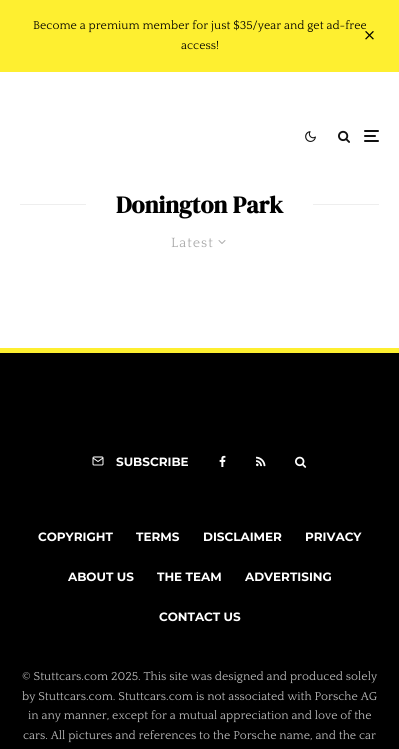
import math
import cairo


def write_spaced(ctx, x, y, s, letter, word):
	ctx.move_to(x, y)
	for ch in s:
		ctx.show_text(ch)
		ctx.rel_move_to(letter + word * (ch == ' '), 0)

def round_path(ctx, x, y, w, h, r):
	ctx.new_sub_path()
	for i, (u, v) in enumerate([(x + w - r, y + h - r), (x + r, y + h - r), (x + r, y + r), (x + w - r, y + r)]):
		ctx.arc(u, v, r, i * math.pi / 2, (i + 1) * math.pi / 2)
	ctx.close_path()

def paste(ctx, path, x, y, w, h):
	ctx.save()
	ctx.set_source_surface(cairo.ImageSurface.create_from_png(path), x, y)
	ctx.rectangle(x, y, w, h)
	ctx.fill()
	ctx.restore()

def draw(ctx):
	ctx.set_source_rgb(1, 1, 1)
	ctx.paint()
	ctx.set_source_rgb(0.996, 0.937, 0.188)
	ctx.rectangle(0, 0, 399, 72)
	ctx.fill()
	ctx.select_font_face('Quattrocento')
	ctx.set_font_size(12)
	ctx.set_source_rgb(0, 0, 0)
	ctx.move_to(33, 29)
	ctx.show_text('Become a premium member for just $35/year and get ad-free')
	paste(ctx, 'media/1.png', 365, 31, 9, 9)
	ctx.move_to(181, 49)
	ctx.show_text('access!')
	paste(ctx, 'media/2.png', 305, 131, 11, 11)
	paste(ctx, 'media/3.png', 338, 130, 12, 13)
	ctx.set_source_rgb(0.067, 0.067, 0.067)
	round_path(ctx, 364, 135, 12, 2, 1)
	ctx.fill()
	round_path(ctx, 364, 130, 15, 2, 1)
	ctx.fill()
	round_path(ctx, 364, 140, 15, 2, 1)
	ctx.fill()
	ctx.set_source_rgb(0.933, 0.933, 0.933)
	ctx.rectangle(20, 204, 66, 1)
	ctx.fill()
	ctx.select_font_face('DM Serif Display', cairo.FONT_SLANT_NORMAL, cairo.FONT_WEIGHT_BOLD)
	ctx.set_font_size(24)
	ctx.set_source_rgb(0, 0, 0)
	ctx.move_to(116, 213)
	ctx.show_text('Donington Park')
	ctx.set_source_rgb(0.933, 0.933, 0.933)
	ctx.rectangle(313, 204, 66, 1)
	ctx.fill()
	ctx.select_font_face('Quattrocento')
	ctx.set_font_size(14)
	ctx.set_source_rgb(0.667, 0.667, 0.667)
	write_spaced(ctx, 171, 247, 'Latest', 1, 0)
	paste(ctx, 'media/4.png', 218, 240, 8, 4)
	ctx.set_source_rgb(0, 0, 0)
	ctx.rectangle(0, 353, 399, 396)
	ctx.fill()
	ctx.set_source_rgb(0.996, 0.937, 0.188)
	ctx.rectangle(0, 348, 399, 5)
	ctx.fill()
	paste(ctx, 'media/5.png', 92, 456, 12, 10)
	ctx.select_font_face('Montserrat', cairo.FONT_SLANT_NORMAL, cairo.FONT_WEIGHT_BOLD)
	ctx.set_font_size(12)
	ctx.set_source_rgb(1, 1, 1)
	ctx.move_to(116, 466)
	ctx.show_text('SUBSCRIBE')
	paste(ctx, 'media/6.png', 219, 455, 7, 12)
	paste(ctx, 'media/7.png', 256, 456, 10, 11)
	paste(ctx, 'media/8.png', 295, 456, 12, 12)
	for x, y, s in [
		(38, 541, 'COPYRIGHT'),
		(136, 541, 'TERMS'),
		(203, 541, 'DISCLAIMER'),
		(305, 541, 'PRIVACY'),
		(68, 581, 'ABOUT US'),
		(157, 581, 'THE TEAM'),
		(245, 581, 'ADVERTISING'),
		(159, 621, 'CONTACT US'),
	]:
		ctx.move_to(x, y)
		ctx.show_text(s)
	ctx.select_font_face('Quattrocento')
	ctx.set_source_rgb(0.749, 0.749, 0.749)
	for x, y, s in [
		(22, 680, '© Stuttcars.com 2025. This site was designed and produced solely'),
		(22, 700, 'by Stuttcars.com. Stuttcars.com is not associated with Porsche AG'),
		(28, 719, 'in any manner, except for a mutual appreciation and love of the'),
		(23, 739, 'cars. All pictures and references to the Porsche name, and the car'),
	]:
		ctx.move_to(x, y)
		ctx.show_text(s)


surface = cairo.ImageSurface(cairo.FORMAT_RGB24, 399, 749)
ctx = cairo.Context(surface)
options = cairo.FontOptions()
options.set_hint_metrics(cairo.HINT_METRICS_OFF)
options.set_hint_style(cairo.HINT_STYLE_NONE)
ctx.set_font_options(options)
ctx.set_miter_limit(4)
draw(ctx)
surface.write_to_png('image.png')
